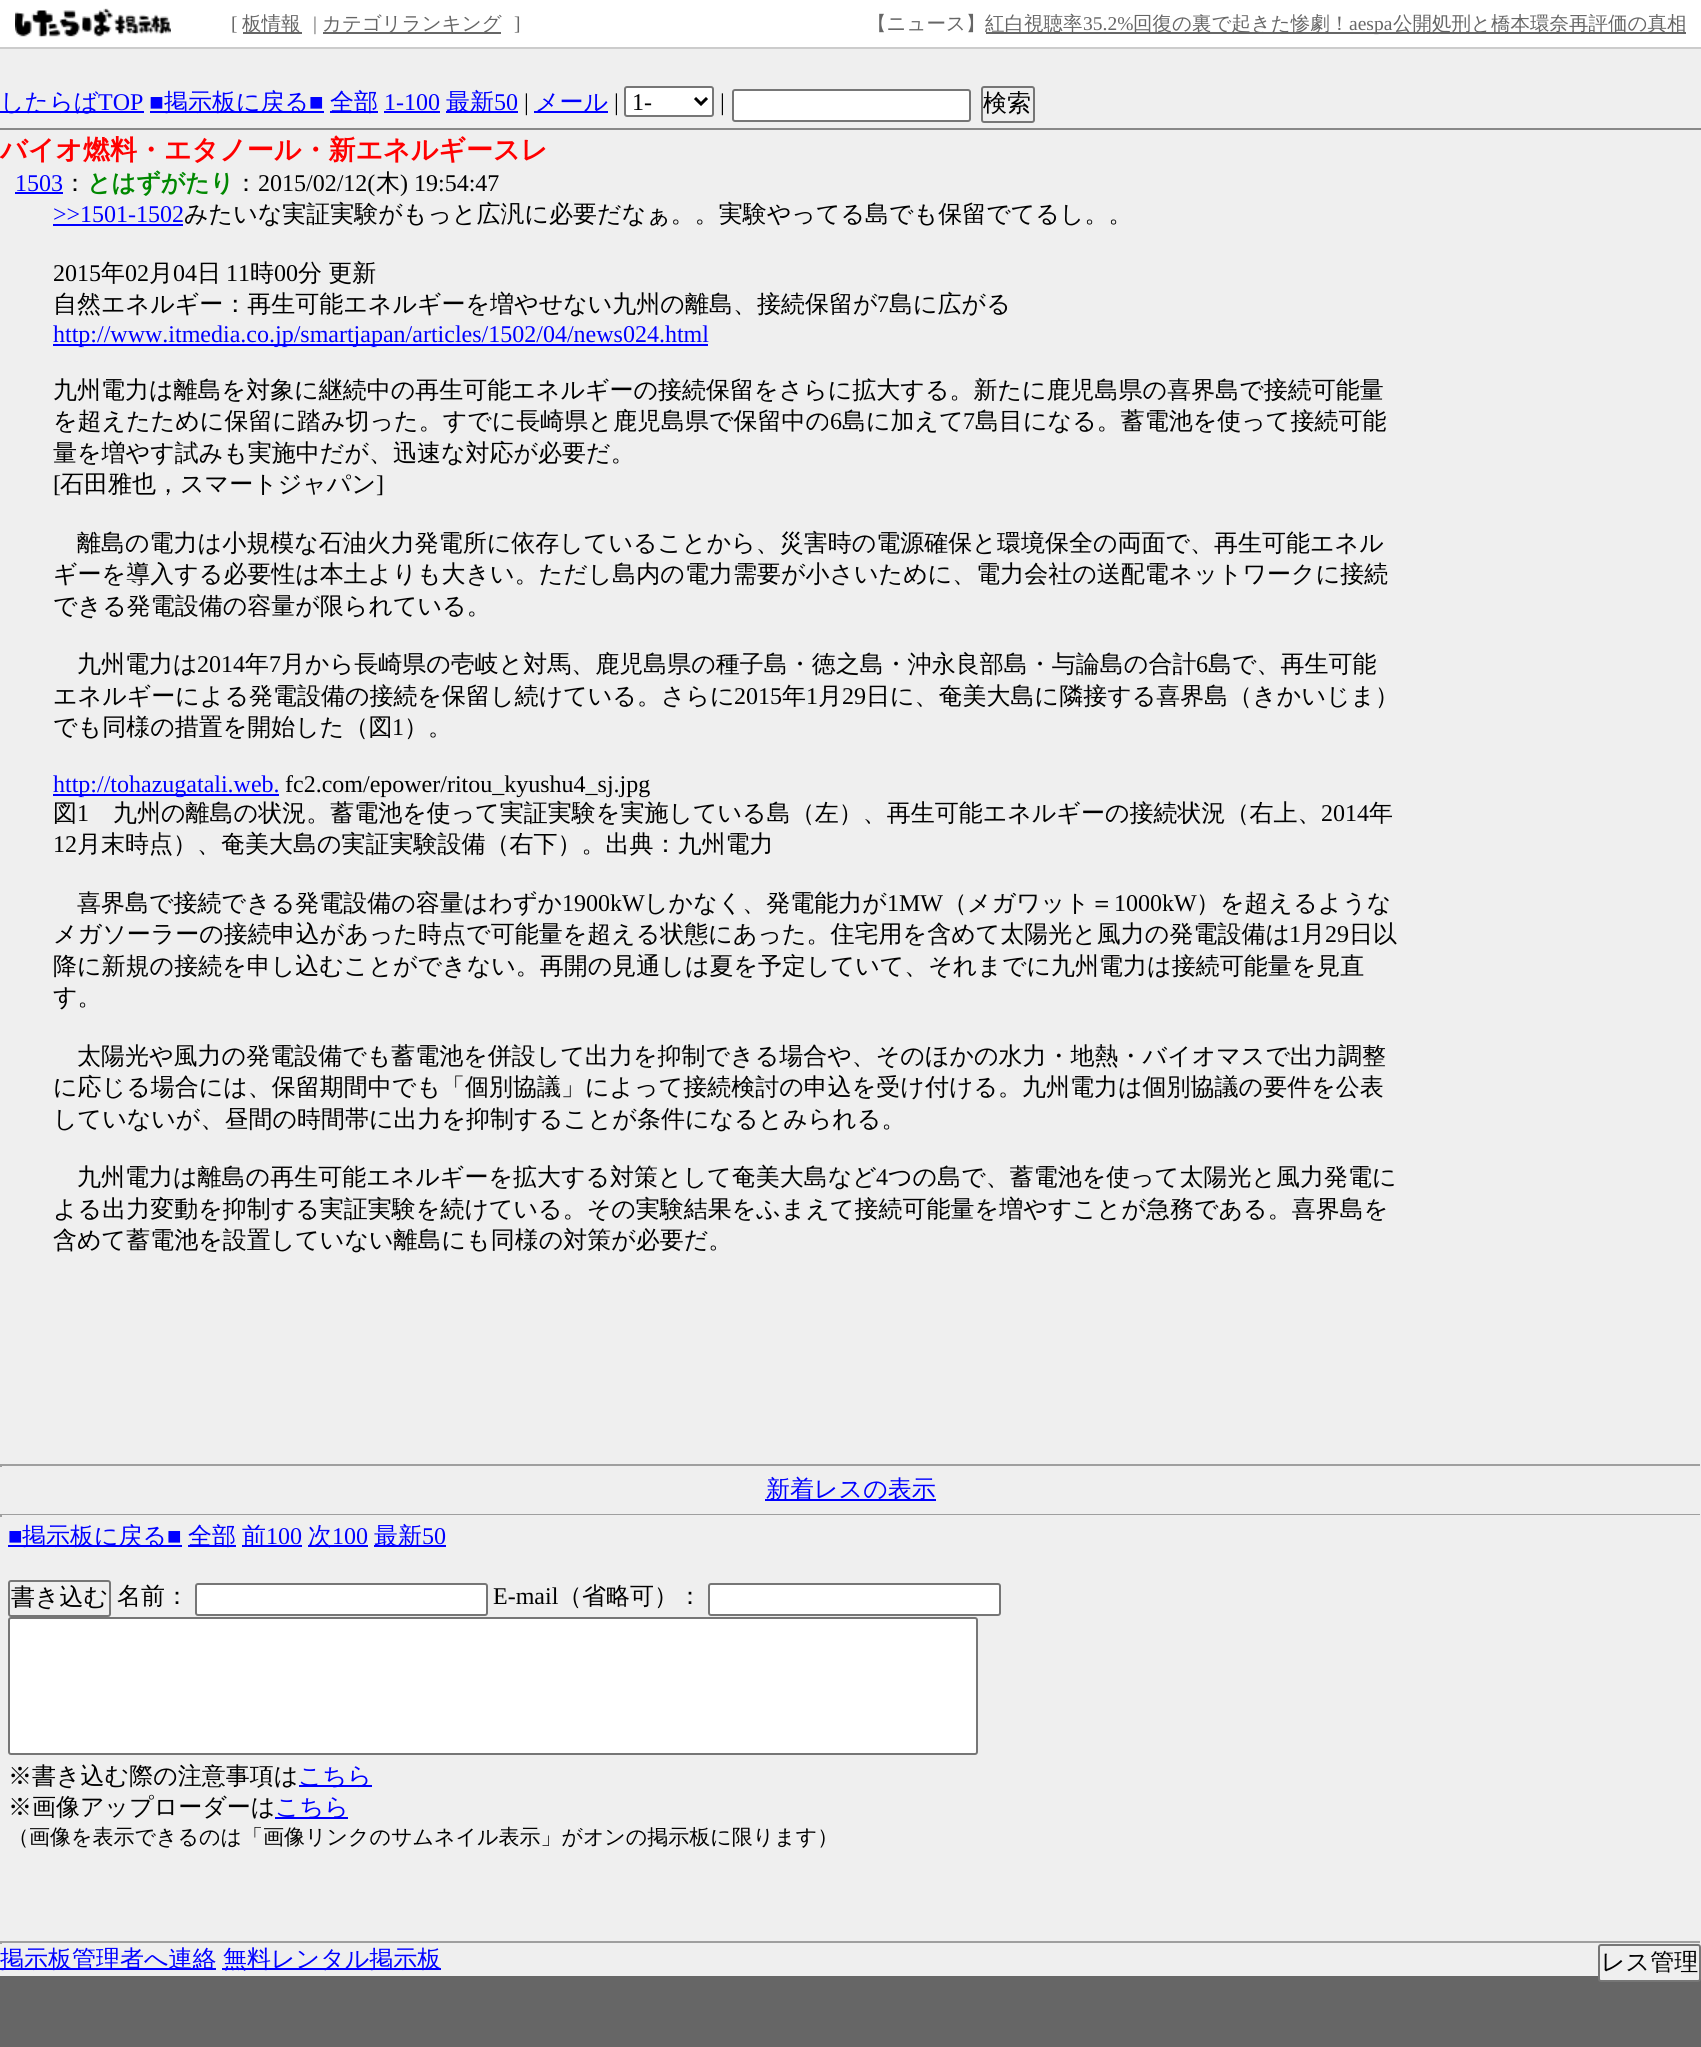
import math
import cairo


def write_spaced(ctx, x, y, s, letter, word):
	ctx.move_to(x, y)
	for ch in s:
		ctx.show_text(ch)
		ctx.rel_move_to(letter + word * (ch == ' '), 0)

def round_path(ctx, x, y, w, h, r):
	ctx.new_sub_path()
	for i, (u, v) in enumerate([(x + w - r, y + h - r), (x + r, y + h - r), (x + r, y + r), (x + w - r, y + r)]):
		ctx.arc(u, v, r, i * math.pi / 2, (i + 1) * math.pi / 2)
	ctx.close_path()

def paste(ctx, path, x, y, w, h):
	ctx.save()
	ctx.set_source_surface(cairo.ImageSurface.create_from_png(path), x, y)
	ctx.rectangle(x, y, w, h)
	ctx.fill()
	ctx.restore()

def draw(ctx):
	ctx.set_source_rgb(0.4, 0.4, 0.4)
	ctx.paint()
	ctx.set_source_rgb(0.937, 0.937, 0.937)
	ctx.rectangle(0, 49, 1701, 1927)
	ctx.fill()
	ctx.set_source_rgb(1, 1, 1)
	ctx.rectangle(0, 0, 1701, 47)
	ctx.fill()
	ctx.set_source_rgb(0.8, 0.8, 0.8)
	ctx.rectangle(0, 47, 1701, 2)
	ctx.fill()
	paste(ctx, 'media/1.png', 15, 8, 156, 30)
	ctx.select_font_face('Liberation Serif')
	ctx.set_font_size(19.5)
	ctx.set_source_rgb(0.4, 0.4, 0.4)
	ctx.move_to(231, 30)
	ctx.show_text('[')
	ctx.rectangle(243, 32, 59, 2)
	ctx.fill()
	ctx.select_font_face('WenQuanYi Zen Hei Medium')
	ctx.move_to(242, 30)
	ctx.show_text('板情報')
	ctx.select_font_face('Liberation Serif')
	ctx.move_to(313, 30)
	ctx.show_text('|')
	ctx.rectangle(323, 32, 178, 2)
	ctx.fill()
	ctx.select_font_face('WenQuanYi Zen Hei Medium')
	ctx.move_to(322, 30)
	ctx.show_text('カテゴリランキング')
	ctx.select_font_face('Liberation Serif')
	ctx.move_to(514, 30)
	ctx.show_text(']')
	ctx.select_font_face('WenQuanYi Zen Hei Medium')
	ctx.move_to(867, 30)
	ctx.show_text('【ニュース】')
	ctx.rectangle(986, 32, 700, 2)
	ctx.fill()
	ctx.move_to(985, 30)
	ctx.show_text('紅白視聴率')
	ctx.select_font_face('Liberation Serif')
	ctx.move_to(1083, 30)
	ctx.show_text('35.2%')
	ctx.select_font_face('WenQuanYi Zen Hei Medium')
	ctx.move_to(1133, 30)
	ctx.show_text('回復の裏で起きた惨劇！')
	ctx.select_font_face('Liberation Serif')
	ctx.move_to(1349, 30)
	ctx.show_text('aespa')
	ctx.select_font_face('WenQuanYi Zen Hei Medium')
	ctx.move_to(1393, 30)
	ctx.show_text('公開処刑と橋本環奈再評価の真相')
	ctx.set_source_rgb(0.533, 0.533, 0.533)
	ctx.rectangle(0, 128, 1701, 2)
	ctx.fill()
	ctx.set_source_rgb(0, 0, 1)
	ctx.rectangle(0, 111, 144, 2)
	ctx.fill()
	ctx.set_font_size(24)
	ctx.move_to(0, 110)
	ctx.show_text('したらば')
	ctx.select_font_face('Liberation Serif')
	ctx.move_to(98, 110)
	ctx.show_text('TOP ■')
	ctx.rectangle(150, 111, 174, 2)
	ctx.fill()
	ctx.select_font_face('WenQuanYi Zen Hei Medium')
	ctx.move_to(164, 110)
	ctx.show_text('掲示板に戻る')
	ctx.select_font_face('Liberation Serif')
	ctx.move_to(309, 110)
	ctx.show_text('■')
	ctx.rectangle(330, 111, 48, 2)
	ctx.fill()
	ctx.select_font_face('WenQuanYi Zen Hei Medium')
	ctx.move_to(330, 110)
	ctx.show_text('全部')
	ctx.select_font_face('Liberation Serif')
	ctx.move_to(384, 110)
	ctx.show_text('1-100')
	ctx.rectangle(384, 111, 56, 2)
	ctx.fill()
	ctx.rectangle(446, 111, 72, 2)
	ctx.fill()
	ctx.select_font_face('WenQuanYi Zen Hei Medium')
	ctx.move_to(446, 110)
	ctx.show_text('最新')
	ctx.select_font_face('Liberation Serif')
	ctx.move_to(494, 110)
	ctx.show_text('50')
	ctx.set_source_rgb(0, 0, 0)
	ctx.move_to(524, 110)
	ctx.show_text('|')
	ctx.set_source_rgb(0, 0, 1)
	ctx.rectangle(534, 111, 74, 2)
	ctx.fill()
	ctx.select_font_face('WenQuanYi Zen Hei Medium')
	ctx.move_to(535, 110)
	ctx.show_text('メール')
	ctx.select_font_face('Liberation Serif')
	ctx.set_source_rgb(0, 0, 0)
	ctx.move_to(614, 110)
	ctx.show_text('|')
	ctx.set_source_rgb(1, 1, 1)
	round_path(ctx, 625, 87, 88, 29, 2)
	ctx.fill_preserve()
	ctx.set_source_rgb(0.463, 0.463, 0.463)
	ctx.stroke()
	ctx.new_path()
	ctx.move_to(695, 98)
	ctx.line_to(701, 104)
	ctx.line_to(707, 98)
	ctx.set_source_rgb(0, 0, 0)
	ctx.set_line_width(3)
	ctx.stroke()
	ctx.move_to(632, 110)
	ctx.show_text('1-')
	ctx.move_to(720, 110)
	ctx.show_text('|')
	ctx.set_source_rgb(1, 1, 1)
	round_path(ctx, 733, 90, 237, 31, 2)
	ctx.fill_preserve()
	ctx.set_source_rgb(0.463, 0.463, 0.463)
	ctx.set_line_width(2)
	ctx.stroke()
	round_path(ctx, 982, 87, 52, 35, 2)
	ctx.stroke()
	ctx.select_font_face('WenQuanYi Zen Hei Medium')
	ctx.set_source_rgb(0, 0, 0)
	ctx.move_to(983, 111)
	ctx.show_text('検索')
	ctx.select_font_face('WenQuanYi Zen Hei', cairo.FONT_SLANT_NORMAL, cairo.FONT_WEIGHT_BOLD)
	ctx.set_font_size(27)
	ctx.set_source_rgb(1, 0, 0)
	ctx.move_to(0, 159)
	ctx.show_text('バイオ燃料・エタノール・新エネルギースレ')
	ctx.select_font_face('Liberation Serif')
	ctx.set_font_size(24)
	ctx.set_source_rgb(0, 0, 1)
	ctx.move_to(15, 191)
	ctx.show_text('1503')
	ctx.rectangle(15, 192, 48, 2)
	ctx.fill()
	ctx.select_font_face('WenQuanYi Zen Hei Medium')
	ctx.set_source_rgb(0, 0, 0)
	ctx.move_to(63, 191)
	ctx.show_text('：')
	ctx.select_font_face('WenQuanYi Zen Hei', cairo.FONT_SLANT_NORMAL, cairo.FONT_WEIGHT_BOLD)
	ctx.set_source_rgb(0, 0.533, 0)
	ctx.move_to(87, 191)
	ctx.show_text('とはずがたり')
	ctx.select_font_face('WenQuanYi Zen Hei Medium')
	ctx.set_source_rgb(0, 0, 0)
	ctx.move_to(234, 191)
	ctx.show_text('：')
	ctx.select_font_face('Liberation Serif')
	ctx.move_to(258, 191)
	ctx.show_text('2015/02/12(')
	ctx.select_font_face('WenQuanYi Zen Hei Medium')
	ctx.move_to(376, 191)
	ctx.show_text('木')
	ctx.select_font_face('Liberation Serif')
	ctx.move_to(400, 191)
	ctx.show_text(') 19:54:47')
	ctx.set_source_rgb(0, 0, 1)
	ctx.move_to(53, 222)
	ctx.show_text('>>1501-1502')
	ctx.rectangle(53, 224, 130, 2)
	ctx.fill()
	ctx.select_font_face('WenQuanYi Zen Hei Medium')
	ctx.set_source_rgb(0, 0, 0)
	ctx.move_to(184, 222)
	ctx.show_text('みたいな実証実験がもっと広汎に必要だなぁ。。実験やってる島でも保留でてるし。。')
	ctx.select_font_face('Liberation Serif')
	ctx.move_to(53, 281)
	ctx.show_text('2015')
	ctx.select_font_face('WenQuanYi Zen Hei Medium')
	ctx.move_to(101, 281)
	ctx.show_text('年')
	ctx.select_font_face('Liberation Serif')
	ctx.move_to(125, 281)
	ctx.show_text('02')
	ctx.select_font_face('WenQuanYi Zen Hei Medium')
	ctx.move_to(149, 281)
	ctx.show_text('月')
	ctx.select_font_face('Liberation Serif')
	ctx.move_to(173, 281)
	ctx.show_text('04')
	ctx.select_font_face('WenQuanYi Zen Hei Medium')
	ctx.move_to(197, 281)
	ctx.show_text('日')
	ctx.select_font_face('Liberation Serif')
	ctx.move_to(226, 281)
	ctx.show_text('11')
	ctx.select_font_face('WenQuanYi Zen Hei Medium')
	ctx.move_to(250, 281)
	ctx.show_text('時')
	ctx.select_font_face('Liberation Serif')
	ctx.move_to(274, 281)
	ctx.show_text('00')
	ctx.select_font_face('WenQuanYi Zen Hei Medium')
	write_spaced(ctx, 298, 281, '分 更新', 0, -1)
	ctx.move_to(53, 312)
	ctx.show_text('自然エネルギー：再生可能エネルギーを増やせない九州の離島、接続保留が')
	ctx.select_font_face('Liberation Serif')
	ctx.move_to(877, 312)
	ctx.show_text('7')
	ctx.select_font_face('WenQuanYi Zen Hei Medium')
	ctx.move_to(889, 312)
	ctx.show_text('島に広がる')
	ctx.set_source_rgb(0, 0, 1)
	ctx.rectangle(53, 344, 655, 2)
	ctx.fill()
	ctx.select_font_face('Liberation Serif')
	ctx.move_to(53, 342)
	ctx.show_text('http://www.itmedia.co.jp/smartjapan/articles/1502/04/news024.html')
	ctx.select_font_face('WenQuanYi Zen Hei Medium')
	ctx.set_source_rgb(0, 0, 0)
	ctx.move_to(53, 398)
	ctx.show_text('九州電力は離島を対象に継続中の再生可能エネルギーの接続保留をさらに拡大する。新たに鹿児島県の喜界島で接続可能量')
	ctx.move_to(53, 429)
	ctx.show_text('を超えたために保留に踏み切った。すでに長崎県と鹿児島県で保留中の')
	ctx.select_font_face('Liberation Serif')
	ctx.move_to(830, 429)
	ctx.show_text('6')
	ctx.select_font_face('WenQuanYi Zen Hei Medium')
	ctx.move_to(842, 429)
	ctx.show_text('島に加えて')
	ctx.select_font_face('Liberation Serif')
	ctx.move_to(963, 429)
	ctx.show_text('7')
	ctx.select_font_face('WenQuanYi Zen Hei Medium')
	ctx.move_to(975, 429)
	ctx.show_text('島目になる。蓄電池を使って接続可能')
	ctx.move_to(53, 461)
	ctx.show_text('量を増やす試みも実施中だが、迅速な対応が必要だ。')
	ctx.select_font_face('Liberation Serif')
	ctx.move_to(53, 492)
	ctx.show_text('[')
	ctx.select_font_face('WenQuanYi Zen Hei Medium')
	ctx.move_to(60, 492)
	ctx.show_text('石田雅也，スマートジャパン')
	ctx.select_font_face('Liberation Serif')
	ctx.move_to(376, 492)
	ctx.show_text(']')
	ctx.select_font_face('WenQuanYi Zen Hei Medium')
	for x, y, s in [
		(77, 551, '離島の電力は小規模な石油火力発電所に依存していることから、災害時の電源確保と環境保全の両面で、再生可能エネル'),
		(53, 582, 'ギーを導入する必要性は本土よりも大きい。ただし島内の電力需要が小さいために、電力会社の送配電ネットワークに接続'),
		(53, 614, 'できる発電設備の容量が限られている。'),
		(77, 672, '九州電力は'),
	]:
		ctx.move_to(x, y)
		ctx.show_text(s)
	ctx.select_font_face('Liberation Serif')
	ctx.move_to(197, 672)
	ctx.show_text('2014')
	ctx.select_font_face('WenQuanYi Zen Hei Medium')
	ctx.move_to(245, 672)
	ctx.show_text('年')
	ctx.select_font_face('Liberation Serif')
	ctx.move_to(269, 672)
	ctx.show_text('7')
	ctx.select_font_face('WenQuanYi Zen Hei Medium')
	ctx.move_to(281, 672)
	ctx.show_text('月から長崎県の壱岐と対馬、鹿児島県の種子島・徳之島・沖永良部島・与論島の合計')
	ctx.select_font_face('Liberation Serif')
	ctx.move_to(1196, 672)
	ctx.show_text('6')
	ctx.select_font_face('WenQuanYi Zen Hei Medium')
	ctx.move_to(1208, 672)
	ctx.show_text('島で、再生可能')
	ctx.move_to(53, 704)
	ctx.show_text('エネルギーによる発電設備の接続を保留し続けている。さらに')
	ctx.select_font_face('Liberation Serif')
	ctx.move_to(734, 704)
	ctx.show_text('2015')
	ctx.select_font_face('WenQuanYi Zen Hei Medium')
	ctx.move_to(782, 704)
	ctx.show_text('年')
	ctx.select_font_face('Liberation Serif')
	ctx.move_to(806, 704)
	ctx.show_text('1')
	ctx.select_font_face('WenQuanYi Zen Hei Medium')
	ctx.move_to(818, 704)
	ctx.show_text('月')
	ctx.select_font_face('Liberation Serif')
	ctx.move_to(842, 704)
	ctx.show_text('29')
	ctx.select_font_face('WenQuanYi Zen Hei Medium')
	ctx.move_to(866, 704)
	ctx.show_text('日に、奄美大島に隣接する喜界島（きかいじま）')
	ctx.move_to(53, 735)
	ctx.show_text('でも同様の措置を開始した（図')
	ctx.select_font_face('Liberation Serif')
	ctx.move_to(392, 735)
	ctx.show_text('1')
	ctx.select_font_face('WenQuanYi Zen Hei Medium')
	ctx.move_to(404, 735)
	ctx.show_text('）。')
	ctx.set_source_rgb(0, 0, 1)
	ctx.rectangle(53, 794, 226, 2)
	ctx.fill()
	ctx.select_font_face('Liberation Serif')
	ctx.move_to(53, 792)
	ctx.show_text('http://tohazugatali.web.')
	ctx.set_source_rgb(0, 0, 0)
	ctx.move_to(285, 792)
	ctx.show_text('fc2.com/epower/ritou_kyushu4_sj.jpg')
	ctx.select_font_face('WenQuanYi Zen Hei Medium')
	ctx.move_to(53, 821)
	ctx.show_text('図')
	ctx.select_font_face('Liberation Serif')
	ctx.move_to(77, 821)
	ctx.show_text('1')
	ctx.select_font_face('WenQuanYi Zen Hei Medium')
	ctx.move_to(113, 821)
	ctx.show_text('九州の離島の状況。蓄電池を使って実証実験を実施している島（左）、再生可能エネルギーの接続状況（右上、')
	ctx.select_font_face('Liberation Serif')
	ctx.move_to(1321, 821)
	ctx.show_text('2014')
	ctx.select_font_face('WenQuanYi Zen Hei Medium')
	ctx.move_to(1369, 821)
	ctx.show_text('年')
	ctx.select_font_face('Liberation Serif')
	ctx.move_to(53, 852)
	ctx.show_text('12')
	ctx.select_font_face('WenQuanYi Zen Hei Medium')
	ctx.move_to(77, 852)
	ctx.show_text('月末時点）、奄美大島の実証実験設備（右下）。出典：九州電力')
	ctx.move_to(77, 911)
	ctx.show_text('喜界島で接続できる発電設備の容量はわずか')
	ctx.select_font_face('Liberation Serif')
	ctx.move_to(562, 911)
	ctx.show_text('1900kW')
	ctx.select_font_face('WenQuanYi Zen Hei Medium')
	ctx.move_to(644, 911)
	ctx.show_text('しかなく、発電能力が')
	ctx.select_font_face('Liberation Serif')
	ctx.move_to(887, 911)
	ctx.show_text('1MW')
	ctx.select_font_face('WenQuanYi Zen Hei Medium')
	ctx.move_to(943, 911)
	ctx.show_text('（メガワット＝')
	ctx.select_font_face('Liberation Serif')
	ctx.move_to(1114, 911)
	ctx.show_text('1000kW')
	ctx.select_font_face('WenQuanYi Zen Hei Medium')
	ctx.move_to(1196, 911)
	ctx.show_text('）を超えるような')
	ctx.move_to(53, 942)
	ctx.show_text('メガソーラーの接続申込があった時点で可能量を超える状態にあった。住宅用を含めて太陽光と風力の発電設備は')
	ctx.select_font_face('Liberation Serif')
	ctx.move_to(1289, 942)
	ctx.show_text('1')
	ctx.select_font_face('WenQuanYi Zen Hei Medium')
	ctx.move_to(1301, 942)
	ctx.show_text('月')
	ctx.select_font_face('Liberation Serif')
	ctx.move_to(1325, 942)
	ctx.show_text('29')
	ctx.select_font_face('WenQuanYi Zen Hei Medium')
	for x, y, s in [
		(1349, 942, '日以'),
		(53, 974, '降に新規の接続を申し込むことができない。再開の見通しは夏を予定していて、それまでに九州電力は接続可能量を見直'),
		(53, 1005, 'す。'),
		(77, 1064, '太陽光や風力の発電設備でも蓄電池を併設して出力を抑制できる場合や、そのほかの水力・地熱・バイオマスで出力調整'),
		(53, 1095, 'に応じる場合には、保留期間中でも「個別協議」によって接続検討の申込を受け付ける。九州電力は個別協議の要件を公表'),
		(53, 1127, 'していないが、昼間の時間帯に出力を抑制することが条件になるとみられる。'),
		(77, 1185, '九州電力は離島の再生可能エネルギーを拡大する対策として奄美大島など'),
	]:
		ctx.move_to(x, y)
		ctx.show_text(s)
	ctx.select_font_face('Liberation Serif')
	ctx.move_to(876, 1185)
	ctx.show_text('4')
	ctx.select_font_face('WenQuanYi Zen Hei Medium')
	for x, y, s in [
		(888, 1185, 'つの島で、蓄電池を使って太陽光と風力発電に'),
		(53, 1217, 'よる出力変動を抑制する実証実験を続けている。その実験結果をふまえて接続可能量を増やすことが急務である。喜界島を'),
		(53, 1248, '含めて蓄電池を設置していない離島にも同様の対策が必要だ。'),
	]:
		ctx.move_to(x, y)
		ctx.show_text(s)
	ctx.set_source_rgb(0.624, 0.624, 0.624)
	ctx.rectangle(0, 1464, 1701, 2)
	ctx.fill()
	ctx.set_source_rgb(0.933, 0.933, 0.933)
	ctx.rectangle(1700, 1464, 1, 3)
	ctx.fill()
	ctx.set_source_rgb(0.624, 0.624, 0.624)
	ctx.rectangle(0, 1464, 2, 3)
	ctx.fill()
	ctx.set_source_rgb(0, 0, 1)
	ctx.rectangle(765, 1499, 171, 2)
	ctx.fill()
	ctx.move_to(766, 1497)
	ctx.show_text('新着レスの表示')
	ctx.set_source_rgb(0.624, 0.624, 0.624)
	ctx.rectangle(0, 1514, 1701, 1)
	ctx.fill()
	ctx.set_source_rgb(0.933, 0.933, 0.933)
	ctx.rectangle(1700, 1514, 1, 3)
	ctx.fill()
	ctx.set_source_rgb(0.624, 0.624, 0.624)
	ctx.rectangle(0, 1514, 2, 3)
	ctx.fill()
	ctx.select_font_face('Liberation Serif')
	ctx.set_source_rgb(0, 0, 1)
	ctx.move_to(8, 1544)
	ctx.show_text('■')
	ctx.rectangle(8, 1545, 174, 2)
	ctx.fill()
	ctx.select_font_face('WenQuanYi Zen Hei Medium')
	ctx.move_to(22, 1544)
	ctx.show_text('掲示板に戻る')
	ctx.select_font_face('Liberation Serif')
	ctx.move_to(167, 1544)
	ctx.show_text('■')
	ctx.rectangle(188, 1545, 48, 2)
	ctx.fill()
	ctx.select_font_face('WenQuanYi Zen Hei Medium')
	ctx.move_to(188, 1544)
	ctx.show_text('全部')
	ctx.rectangle(242, 1545, 60, 2)
	ctx.fill()
	ctx.move_to(242, 1544)
	ctx.show_text('前')
	ctx.select_font_face('Liberation Serif')
	ctx.move_to(266, 1544)
	ctx.show_text('100')
	ctx.rectangle(308, 1545, 60, 2)
	ctx.fill()
	ctx.select_font_face('WenQuanYi Zen Hei Medium')
	ctx.move_to(308, 1544)
	ctx.show_text('次')
	ctx.select_font_face('Liberation Serif')
	ctx.move_to(332, 1544)
	ctx.show_text('100')
	ctx.rectangle(374, 1545, 72, 2)
	ctx.fill()
	ctx.select_font_face('WenQuanYi Zen Hei Medium')
	ctx.move_to(374, 1544)
	ctx.show_text('最新')
	ctx.select_font_face('Liberation Serif')
	ctx.move_to(422, 1544)
	ctx.show_text('50')
	round_path(ctx, 9, 1581, 101, 35, 2)
	ctx.set_source_rgb(0.463, 0.463, 0.463)
	ctx.stroke()
	ctx.select_font_face('WenQuanYi Zen Hei Medium')
	ctx.set_source_rgb(0, 0, 0)
	ctx.move_to(11, 1605)
	ctx.show_text('書き込む')
	ctx.move_to(117, 1604)
	ctx.show_text('名前：')
	ctx.set_source_rgb(1, 1, 1)
	round_path(ctx, 196, 1584, 291, 31, 2)
	ctx.fill_preserve()
	ctx.set_source_rgb(0.463, 0.463, 0.463)
	ctx.stroke()
	ctx.select_font_face('Liberation Serif')
	ctx.set_source_rgb(0, 0, 0)
	ctx.move_to(493, 1604)
	ctx.show_text('E-mail')
	ctx.select_font_face('WenQuanYi Zen Hei Medium')
	ctx.move_to(558, 1604)
	ctx.show_text('（省略可）：')
	ctx.set_source_rgb(1, 1, 1)
	round_path(ctx, 709, 1584, 291, 31, 2)
	ctx.fill_preserve()
	ctx.set_source_rgb(0.463, 0.463, 0.463)
	ctx.stroke()
	ctx.set_source_rgb(1, 1, 1)
	round_path(ctx, 9, 1618, 968, 136, 2)
	ctx.fill_preserve()
	ctx.set_source_rgb(0.463, 0.463, 0.463)
	ctx.stroke()
	ctx.set_source_rgb(0, 0, 0)
	ctx.move_to(8, 1784)
	ctx.show_text('※書き込む際の注意事項は')
	ctx.set_source_rgb(0, 0, 1)
	ctx.rectangle(299, 1785, 73, 2)
	ctx.fill()
	ctx.move_to(298, 1784)
	ctx.show_text('こちら')
	ctx.set_source_rgb(0, 0, 0)
	ctx.move_to(8, 1815)
	ctx.show_text('※画像アップローダーは')
	ctx.set_source_rgb(0, 0, 1)
	ctx.rectangle(275, 1817, 73, 2)
	ctx.fill()
	ctx.move_to(275, 1815)
	ctx.show_text('こちら')
	ctx.set_font_size(21)
	ctx.set_source_rgb(0, 0, 0)
	ctx.move_to(8, 1844)
	ctx.show_text('（画像を表示できるのは「画像リンクのサムネイル表示」がオンの掲示板に限ります）')
	ctx.set_source_rgb(0.624, 0.624, 0.624)
	ctx.rectangle(0, 1941, 1701, 2)
	ctx.fill()
	ctx.set_source_rgb(0.933, 0.933, 0.933)
	ctx.rectangle(1700, 1941, 1, 3)
	ctx.fill()
	ctx.set_source_rgb(0.624, 0.624, 0.624)
	ctx.rectangle(0, 1941, 2, 3)
	ctx.fill()
	ctx.set_source_rgb(0, 0, 1)
	ctx.rectangle(0, 1968, 216, 2)
	ctx.fill()
	ctx.set_font_size(24)
	ctx.move_to(0, 1967)
	ctx.show_text('掲示板管理者へ連絡')
	ctx.rectangle(222, 1968, 219, 2)
	ctx.fill()
	ctx.move_to(223, 1967)
	ctx.show_text('無料レンタル掲示板')
	ctx.set_source_rgb(0.937, 0.937, 0.937)
	round_path(ctx, 1599, 1945, 101, 36, 2)
	ctx.fill_preserve()
	ctx.set_source_rgb(0.463, 0.463, 0.463)
	ctx.stroke()
	ctx.set_source_rgb(0, 0, 0)
	ctx.move_to(1601, 1970)
	ctx.show_text('レス管理')


surface = cairo.ImageSurface(cairo.FORMAT_RGB24, 1701, 2047)
ctx = cairo.Context(surface)
options = cairo.FontOptions()
options.set_hint_metrics(cairo.HINT_METRICS_OFF)
options.set_hint_style(cairo.HINT_STYLE_NONE)
ctx.set_font_options(options)
ctx.set_miter_limit(4)
draw(ctx)
surface.write_to_png('image.png')
